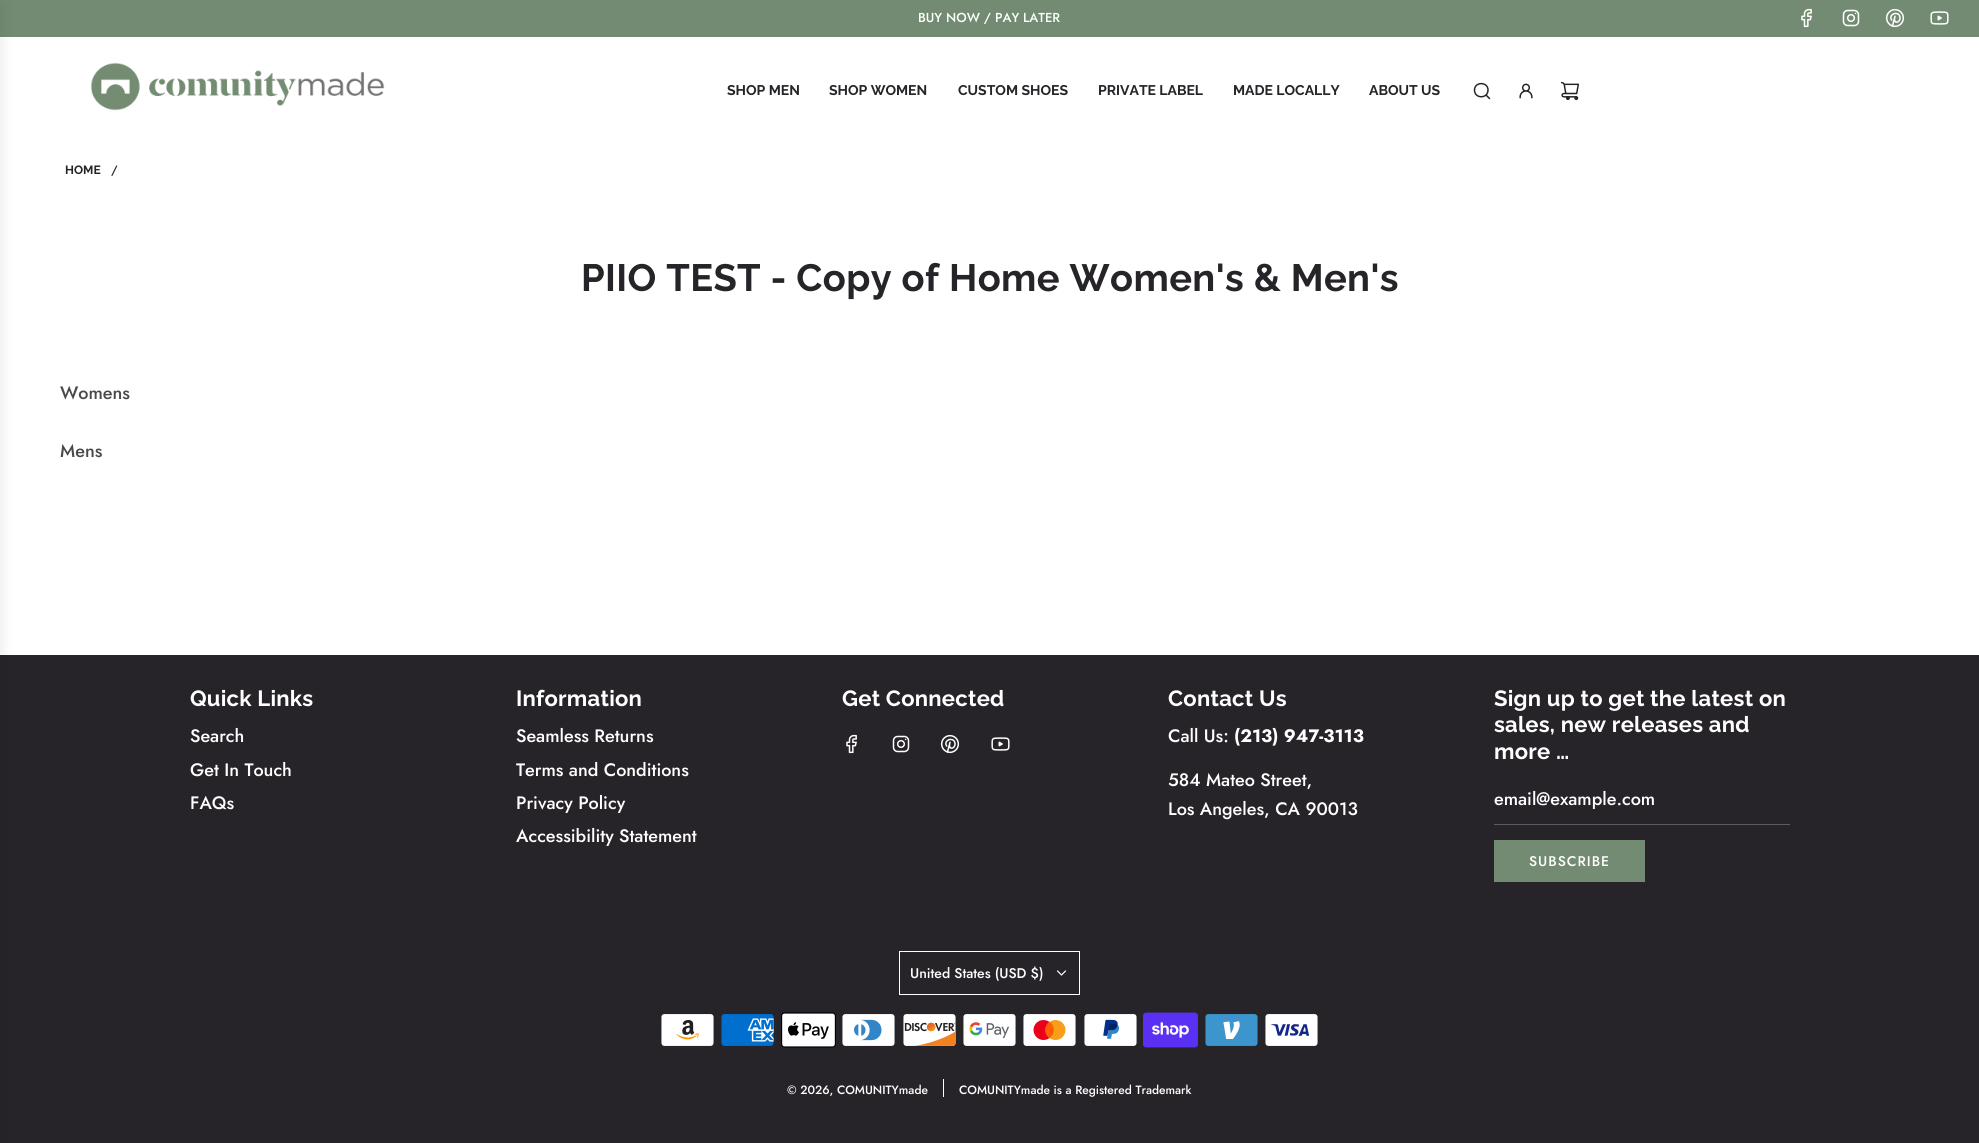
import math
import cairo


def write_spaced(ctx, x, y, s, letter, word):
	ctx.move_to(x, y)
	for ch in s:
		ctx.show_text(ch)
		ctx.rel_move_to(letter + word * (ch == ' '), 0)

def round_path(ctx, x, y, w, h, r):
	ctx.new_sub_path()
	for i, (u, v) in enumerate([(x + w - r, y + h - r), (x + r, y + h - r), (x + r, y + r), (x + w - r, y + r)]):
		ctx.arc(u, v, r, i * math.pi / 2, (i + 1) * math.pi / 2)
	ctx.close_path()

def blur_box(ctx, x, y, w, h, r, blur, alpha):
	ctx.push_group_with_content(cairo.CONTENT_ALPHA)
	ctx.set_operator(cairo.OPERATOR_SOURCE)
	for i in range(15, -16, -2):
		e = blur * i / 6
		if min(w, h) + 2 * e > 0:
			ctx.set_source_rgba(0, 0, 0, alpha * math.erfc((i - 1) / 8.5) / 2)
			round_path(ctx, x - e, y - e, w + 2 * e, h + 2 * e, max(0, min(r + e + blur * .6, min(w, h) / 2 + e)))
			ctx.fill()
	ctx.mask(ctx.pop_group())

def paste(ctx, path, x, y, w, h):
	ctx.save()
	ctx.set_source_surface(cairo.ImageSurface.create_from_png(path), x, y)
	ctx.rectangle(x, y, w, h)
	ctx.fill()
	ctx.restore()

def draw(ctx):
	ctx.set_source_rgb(1, 1, 1)
	ctx.paint()
	ctx.set_source_rgb(0.447, 0.545, 0.447)
	ctx.rectangle(0, 0, 1979, 37)
	ctx.fill()
	ctx.select_font_face('Jost Medium')
	ctx.set_font_size(13)
	ctx.set_source_rgb(1, 1, 1)
	ctx.move_to(918, 22)
	ctx.show_text('BUY NOW / PAY LATER')
	paste(ctx, 'media/1.png', 1801, 8, 11, 20)
	paste(ctx, 'media/2.png', 1842, 9, 18, 18)
	paste(ctx, 'media/3.png', 1885, 8, 20, 20)
	paste(ctx, 'media/4.png', 1930, 11, 19, 14)
	ctx.set_source_rgb(0.149, 0.141, 0.157)
	ctx.rectangle(0, 655, 1979, 488)
	ctx.fill()
	ctx.set_source_rgb(0, 0, 0)
	blur_box(ctx, -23, 5, 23, 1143, 0, 7.5, 0.1)
	paste(ctx, 'media/5.png', 90, 62, 295, 49)
	ctx.select_font_face('Raleway', cairo.FONT_SLANT_NORMAL, cairo.FONT_WEIGHT_BOLD)
	ctx.set_font_size(14)
	ctx.set_source_rgb(0.149, 0.141, 0.157)
	for x, y, s in [
		(727, 95, 'SHOP MEN'),
		(829, 95, 'SHOP WOMEN'),
		(958, 95, 'CUSTOM SHOES'),
		(1098, 95, 'PRIVATE LABEL'),
		(1233, 95, 'MADE LOCALLY'),
		(1369, 95, 'ABOUT US'),
	]:
		ctx.move_to(x, y)
		ctx.show_text(s)
	ctx.new_path()
	ctx.move_to(1486, 95)
	ctx.line_to(1489.5, 98.5)
	ctx.move_to(1474.5, 90)
	ctx.curve_to(1474.5, 99, 1488, 99, 1488, 90)
	ctx.curve_to(1488, 81.5, 1474.5, 81.5, 1474.5, 90)
	ctx.close_path()
	ctx.set_line_width(1.5)
	ctx.set_line_cap(cairo.LINE_CAP_ROUND)
	ctx.set_line_join(cairo.LINE_JOIN_ROUND)
	ctx.stroke()
	paste(ctx, 'media/6.png', 1519, 83, 14, 16)
	paste(ctx, 'media/7.png', 1560, 81, 20, 20)
	ctx.set_font_size(12)
	ctx.move_to(65, 174)
	ctx.show_text('HOME')
	ctx.select_font_face('Jost Medium')
	ctx.move_to(111, 174)
	ctx.show_text('/')
	ctx.select_font_face('Raleway', cairo.FONT_SLANT_NORMAL, cairo.FONT_WEIGHT_BOLD)
	ctx.set_font_size(38)
	write_spaced(ctx, 581, 291, 'PIIO TEST - Copy of Home Women\'s & Men\'s', 0.4, 0)
	ctx.select_font_face('Jost Medium')
	ctx.set_font_size(18)
	ctx.set_source_rgb(0.286, 0.286, 0.286)
	ctx.move_to(60, 399)
	ctx.show_text('Womens')
	ctx.move_to(60, 457)
	ctx.show_text('Mens')
	ctx.select_font_face('Raleway', cairo.FONT_SLANT_NORMAL, cairo.FONT_WEIGHT_BOLD)
	ctx.set_font_size(22)
	ctx.set_source_rgb(1, 1, 1)
	write_spaced(ctx, 190, 706, 'Quick Links', 0.25, 0)
	ctx.select_font_face('Jost Medium')
	ctx.set_font_size(18)
	for x, y, s in [
		(190, 742, 'Search'),
		(190, 776, 'Get In Touch'),
		(190, 809, 'FAQs'),
	]:
		ctx.move_to(x, y)
		ctx.show_text(s)
	ctx.select_font_face('Raleway', cairo.FONT_SLANT_NORMAL, cairo.FONT_WEIGHT_BOLD)
	ctx.set_font_size(22)
	write_spaced(ctx, 516, 706, 'Information', 0.25, 0)
	ctx.select_font_face('Jost Medium')
	ctx.set_font_size(18)
	for x, y, s in [
		(516, 742, 'Seamless Returns'),
		(516, 776, 'Terms and Conditions'),
		(516, 809, 'Privacy Policy'),
		(516, 842, 'Accessibility Statement'),
	]:
		ctx.move_to(x, y)
		ctx.show_text(s)
	ctx.select_font_face('Raleway', cairo.FONT_SLANT_NORMAL, cairo.FONT_WEIGHT_BOLD)
	ctx.set_font_size(22)
	write_spaced(ctx, 842, 706, 'Get Connected', 0.25, 0)
	paste(ctx, 'media/8.png', 846, 734, 11, 20)
	paste(ctx, 'media/9.png', 892, 735, 18, 18)
	paste(ctx, 'media/10.png', 940, 734, 20, 20)
	paste(ctx, 'media/11.png', 991, 737, 19, 14)
	write_spaced(ctx, 1168, 706, 'Contact Us', 0.25, 0)
	ctx.select_font_face('Jost Medium')
	ctx.set_font_size(18)
	ctx.move_to(1168, 742)
	ctx.show_text('Call Us:')
	ctx.select_font_face('Jost', cairo.FONT_SLANT_NORMAL, cairo.FONT_WEIGHT_BOLD)
	ctx.move_to(1234, 742)
	ctx.show_text('(213) 947-3113')
	ctx.select_font_face('Jost Medium')
	ctx.move_to(1168, 786)
	ctx.show_text('584 Mateo Street,')
	ctx.move_to(1168, 815)
	ctx.show_text('Los Angeles, CA 90013')
	ctx.select_font_face('Raleway', cairo.FONT_SLANT_NORMAL, cairo.FONT_WEIGHT_BOLD)
	ctx.set_font_size(22)
	for x, y, s in [
		(1494, 706, 'Sign up to get the latest on'),
		(1494, 732, 'sales, new releases and'),
		(1494, 759, 'more …'),
	]:
		write_spaced(ctx, x, y, s, 0.25, 0)
	ctx.set_source_rgb(0.361, 0.357, 0.369)
	ctx.rectangle(1494, 824, 296, 1)
	ctx.fill()
	ctx.select_font_face('Jost Medium')
	ctx.set_font_size(18)
	ctx.set_source_rgb(1, 1, 1)
	ctx.move_to(1494, 805)
	ctx.show_text('email@example.com')
	ctx.set_source_rgb(0.447, 0.545, 0.447)
	ctx.rectangle(1494, 840, 151, 42)
	ctx.fill()
	ctx.set_font_size(14)
	ctx.set_source_rgb(1, 1, 1)
	write_spaced(ctx, 1529, 866, 'SUBSCRIBE', 1, 0)
	ctx.rectangle(899.5, 951.5, 180, 43)
	ctx.set_line_width(1)
	ctx.set_line_cap(cairo.LINE_CAP_BUTT)
	ctx.set_line_join(cairo.LINE_JOIN_MITER)
	ctx.stroke()
	ctx.move_to(910, 978)
	ctx.show_text('United States (USD $)')
	ctx.new_path()
	ctx.move_to(1057.5, 971)
	ctx.line_to(1061.5, 975)
	ctx.line_to(1065.5, 971)
	ctx.set_line_width(1.2)
	ctx.set_line_cap(cairo.LINE_CAP_ROUND)
	ctx.set_line_join(cairo.LINE_JOIN_ROUND)
	ctx.stroke()
	paste(ctx, 'media/12.png', 661, 1014, 53, 32)
	paste(ctx, 'media/13.png', 721, 1014, 53, 32)
	paste(ctx, 'media/14.png', 781, 1012, 55, 36)
	paste(ctx, 'media/15.png', 842, 1014, 53, 32)
	paste(ctx, 'media/16.png', 903, 1014, 53, 32)
	paste(ctx, 'media/17.png', 963, 1014, 53, 32)
	paste(ctx, 'media/18.png', 1023, 1014, 53, 32)
	paste(ctx, 'media/19.png', 1084, 1014, 53, 32)
	paste(ctx, 'media/20.png', 1143, 1012, 55, 36)
	paste(ctx, 'media/21.png', 1205, 1014, 53, 32)
	paste(ctx, 'media/22.png', 1265, 1014, 53, 32)
	ctx.set_font_size(12)
	ctx.move_to(787, 1094)
	ctx.show_text('© 2026, COMUNITYmade')
	ctx.rectangle(943, 1079, 1, 18)
	ctx.fill()
	ctx.move_to(959, 1094)
	ctx.show_text('COMUNITYmade is a Registered Trademark')


surface = cairo.ImageSurface(cairo.FORMAT_RGB24, 1979, 1143)
ctx = cairo.Context(surface)
options = cairo.FontOptions()
options.set_hint_metrics(cairo.HINT_METRICS_OFF)
options.set_hint_style(cairo.HINT_STYLE_NONE)
ctx.set_font_options(options)
ctx.set_miter_limit(4)
draw(ctx)
surface.write_to_png('image.png')
